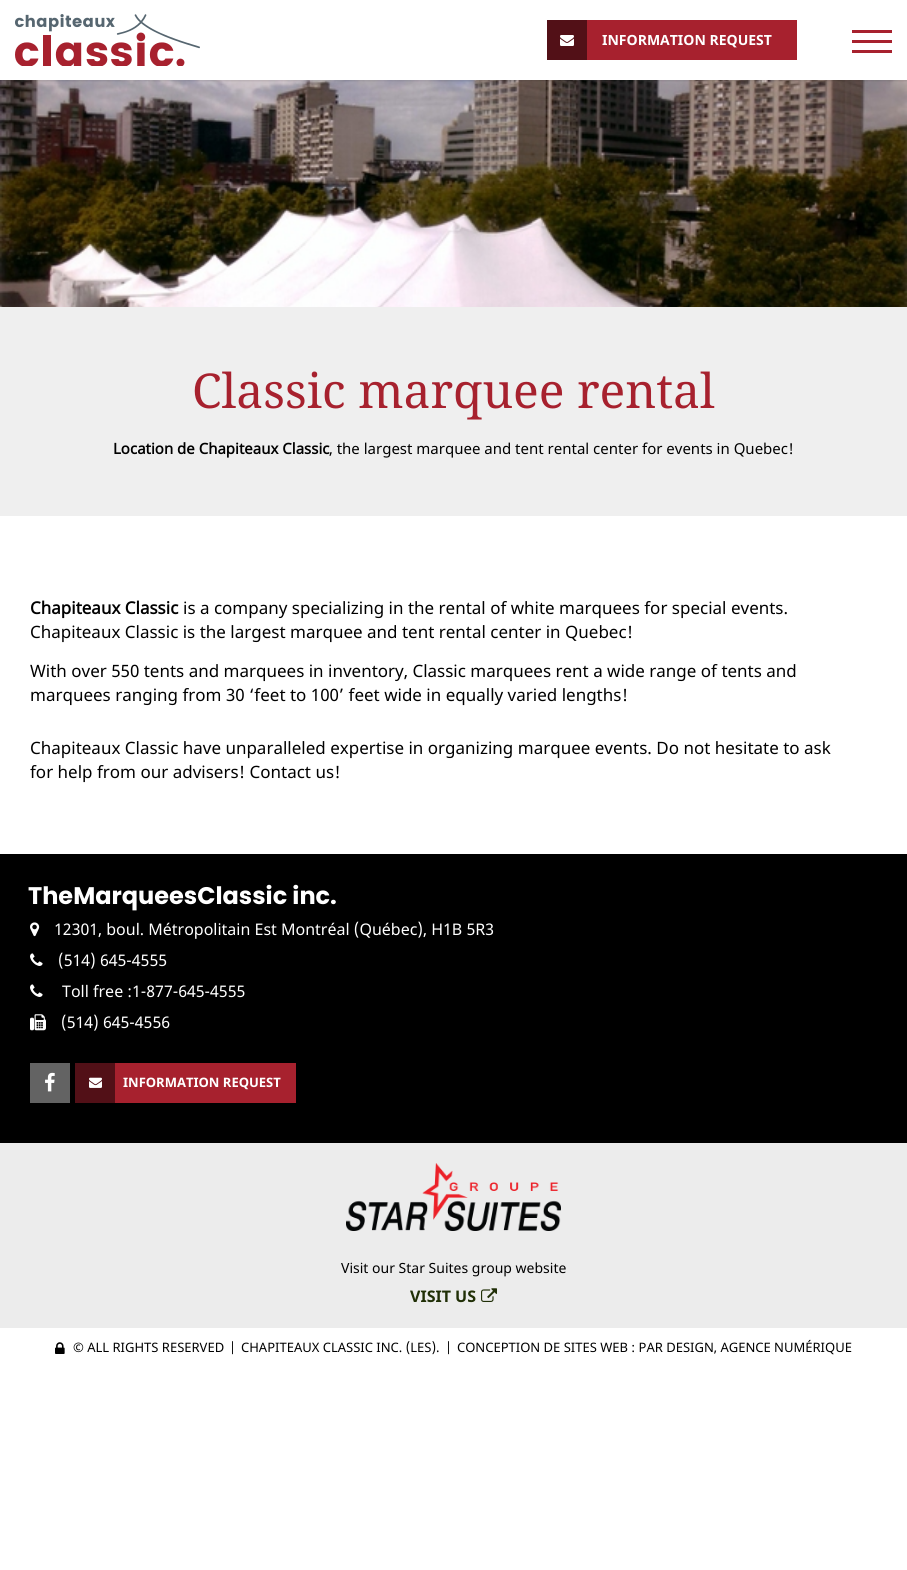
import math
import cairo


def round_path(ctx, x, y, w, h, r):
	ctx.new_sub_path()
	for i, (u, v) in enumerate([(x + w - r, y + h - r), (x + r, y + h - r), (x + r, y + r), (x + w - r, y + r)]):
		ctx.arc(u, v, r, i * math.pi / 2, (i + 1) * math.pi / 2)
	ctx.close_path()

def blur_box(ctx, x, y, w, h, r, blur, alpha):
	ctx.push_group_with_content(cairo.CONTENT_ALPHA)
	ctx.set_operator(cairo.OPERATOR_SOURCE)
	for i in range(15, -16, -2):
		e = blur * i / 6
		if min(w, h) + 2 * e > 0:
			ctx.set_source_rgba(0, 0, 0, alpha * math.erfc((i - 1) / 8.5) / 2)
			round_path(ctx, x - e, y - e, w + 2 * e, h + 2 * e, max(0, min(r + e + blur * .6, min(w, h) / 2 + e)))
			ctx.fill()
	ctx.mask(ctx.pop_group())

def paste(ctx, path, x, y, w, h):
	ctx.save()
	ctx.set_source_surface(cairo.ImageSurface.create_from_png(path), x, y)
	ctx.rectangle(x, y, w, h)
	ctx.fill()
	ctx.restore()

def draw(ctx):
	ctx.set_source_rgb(1, 1, 1)
	ctx.paint()
	paste(ctx, 'media/3.png', 0, 80, 907, 227)
	ctx.save()
	ctx.rectangle(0, 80, 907, 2)
	ctx.clip()
	ctx.set_source_rgb(0, 0, 0)
	blur_box(ctx, 0, 1, 907, 80, 0, 1, 0.1)
	ctx.restore()
	paste(ctx, 'media/1.png', 15, 14, 185, 52)
	ctx.set_source_rgb(0.655, 0.129, 0.18)
	ctx.rectangle(587, 20, 210, 40)
	ctx.fill()
	ctx.set_source_rgb(0.322, 0.063, 0.09)
	ctx.rectangle(547, 20, 40, 40)
	ctx.fill()
	paste(ctx, 'media/2.png', 560, 35, 14, 11)
	ctx.select_font_face('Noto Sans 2', cairo.FONT_SLANT_NORMAL, cairo.FONT_WEIGHT_BOLD)
	ctx.set_font_size(14)
	ctx.set_source_rgb(1, 1, 1)
	ctx.move_to(602, 45)
	ctx.show_text('INFORMATION REQUEST')
	ctx.set_source_rgb(0.655, 0.129, 0.18)
	ctx.rectangle(852, 30, 40, 3)
	ctx.rectangle(852, 40, 40, 3)
	ctx.rectangle(852, 50, 40, 3)
	ctx.fill()
	ctx.set_source_rgb(0.937, 0.937, 0.937)
	ctx.rectangle(0, 307, 907, 209)
	ctx.fill()
	ctx.select_font_face('Noto Serif')
	ctx.set_font_size(48)
	ctx.set_source_rgb(0.655, 0.129, 0.18)
	ctx.move_to(192, 408)
	ctx.show_text('Classic marquee rental')
	ctx.select_font_face('Noto Sans', cairo.FONT_SLANT_NORMAL, cairo.FONT_WEIGHT_BOLD)
	ctx.set_font_size(15)
	ctx.set_source_rgb(0, 0, 0)
	ctx.move_to(113, 454)
	ctx.show_text('Location de Chapiteaux Classic')
	ctx.select_font_face('Noto Sans')
	ctx.move_to(329, 454)
	ctx.show_text(', the largest marquee and tent rental center for events in Quebec!')
	ctx.select_font_face('Noto Sans', cairo.FONT_SLANT_NORMAL, cairo.FONT_WEIGHT_BOLD)
	ctx.set_font_size(17)
	ctx.move_to(30, 614)
	ctx.show_text('Chapiteaux Classic')
	ctx.select_font_face('Noto Sans')
	for x, y, s in [
		(183, 614, 'is a company specializing in the rental of white marquees for special events.'),
		(30, 638, 'Chapiteaux Classic is the largest marquee and tent rental center in Quebec!'),
		(30, 677, 'With over 550 tents and marquees in inventory, Classic marquees rent a wide range of tents and'),
		(30, 701, 'marquees ranging from 30 ‘feet to 100’ feet wide in equally varied lengths!'),
		(30, 754, 'Chapiteaux Classic have unparalleled expertise in organizing marquee events. Do not hesitate to ask'),
		(30, 778, 'for help from our advisers! Contact us!'),
	]:
		ctx.move_to(x, y)
		ctx.show_text(s)
	ctx.rectangle(0, 854, 907, 289)
	ctx.fill()
	ctx.select_font_face('Poppins', cairo.FONT_SLANT_NORMAL, cairo.FONT_WEIGHT_BOLD)
	ctx.set_font_size(24)
	ctx.set_source_rgb(1, 1, 1)
	ctx.move_to(28, 904)
	ctx.show_text('TheMarqueesClassic inc.')
	paste(ctx, 'media/4.png', 30, 922, 10, 15)
	ctx.select_font_face('Noto Sans')
	ctx.set_font_size(16)
	ctx.move_to(54, 935)
	ctx.show_text('12301, boul. Métropolitain Est Montréal (Québec), H1B 5R3')
	paste(ctx, 'media/5.png', 30, 953, 13, 13)
	ctx.move_to(58, 966)
	ctx.show_text('(514) 645-4555')
	paste(ctx, 'media/5.png', 30, 984, 13, 13)
	ctx.move_to(62, 997)
	ctx.show_text('Toll free :1-877-645-4555')
	paste(ctx, 'media/6.png', 30, 1014, 16, 17)
	ctx.move_to(61, 1028)
	ctx.show_text('(514) 645-4556')
	ctx.set_source_rgb(0.388, 0.388, 0.388)
	ctx.rectangle(30, 1063, 40, 40)
	ctx.fill()
	paste(ctx, 'media/7.png', 45, 1072, 10, 20)
	ctx.set_source_rgb(0.655, 0.129, 0.18)
	ctx.rectangle(115, 1063, 181, 40)
	ctx.fill()
	ctx.set_source_rgb(0.322, 0.063, 0.09)
	ctx.rectangle(75, 1063, 40, 40)
	ctx.fill()
	paste(ctx, 'media/8.png', 89, 1077, 13, 11)
	ctx.select_font_face('Noto Sans 2', cairo.FONT_SLANT_NORMAL, cairo.FONT_WEIGHT_BOLD)
	ctx.set_font_size(13)
	ctx.set_source_rgb(1, 1, 1)
	ctx.move_to(123, 1087)
	ctx.show_text('INFORMATION REQUEST')
	ctx.set_source_rgb(0.922, 0.922, 0.922)
	ctx.rectangle(0, 1143, 907, 185)
	ctx.fill()
	paste(ctx, 'media/9.png', 346, 1163, 215, 68)
	ctx.select_font_face('Noto Sans')
	ctx.set_font_size(14)
	ctx.set_source_rgb(0, 0, 0)
	ctx.move_to(341, 1273)
	ctx.show_text('Visit our Star Suites group website')
	ctx.select_font_face('Noto Sans 2', cairo.FONT_SLANT_NORMAL, cairo.FONT_WEIGHT_BOLD)
	ctx.set_font_size(16)
	ctx.set_source_rgb(0.125, 0.184, 0.027)
	ctx.move_to(410, 1302)
	ctx.show_text('VISIT US')
	paste(ctx, 'media/10.png', 481, 1288, 16, 14)
	paste(ctx, 'media/11.png', 55, 1342, 10, 12)
	ctx.select_font_face('Noto Sans')
	ctx.set_font_size(13)
	ctx.set_source_rgb(0, 0, 0)
	for x, y, s in [
		(73, 1352, '© ALL RIGHTS RESERVED'),
		(229, 1352, '|'),
		(241, 1352, 'CHAPITEAUX CLASSIC INC. (LES).'),
		(445, 1352, '|'),
		(457, 1352, 'CONCEPTION DE SITES WEB : PAR DESIGN, AGENCE NUMÉRIQUE'),
	]:
		ctx.move_to(x, y)
		ctx.show_text(s)


surface = cairo.ImageSurface(cairo.FORMAT_RGB24, 907, 1570)
ctx = cairo.Context(surface)
options = cairo.FontOptions()
options.set_hint_metrics(cairo.HINT_METRICS_OFF)
options.set_hint_style(cairo.HINT_STYLE_NONE)
ctx.set_font_options(options)
ctx.set_miter_limit(4)
draw(ctx)
surface.write_to_png('image.png')
